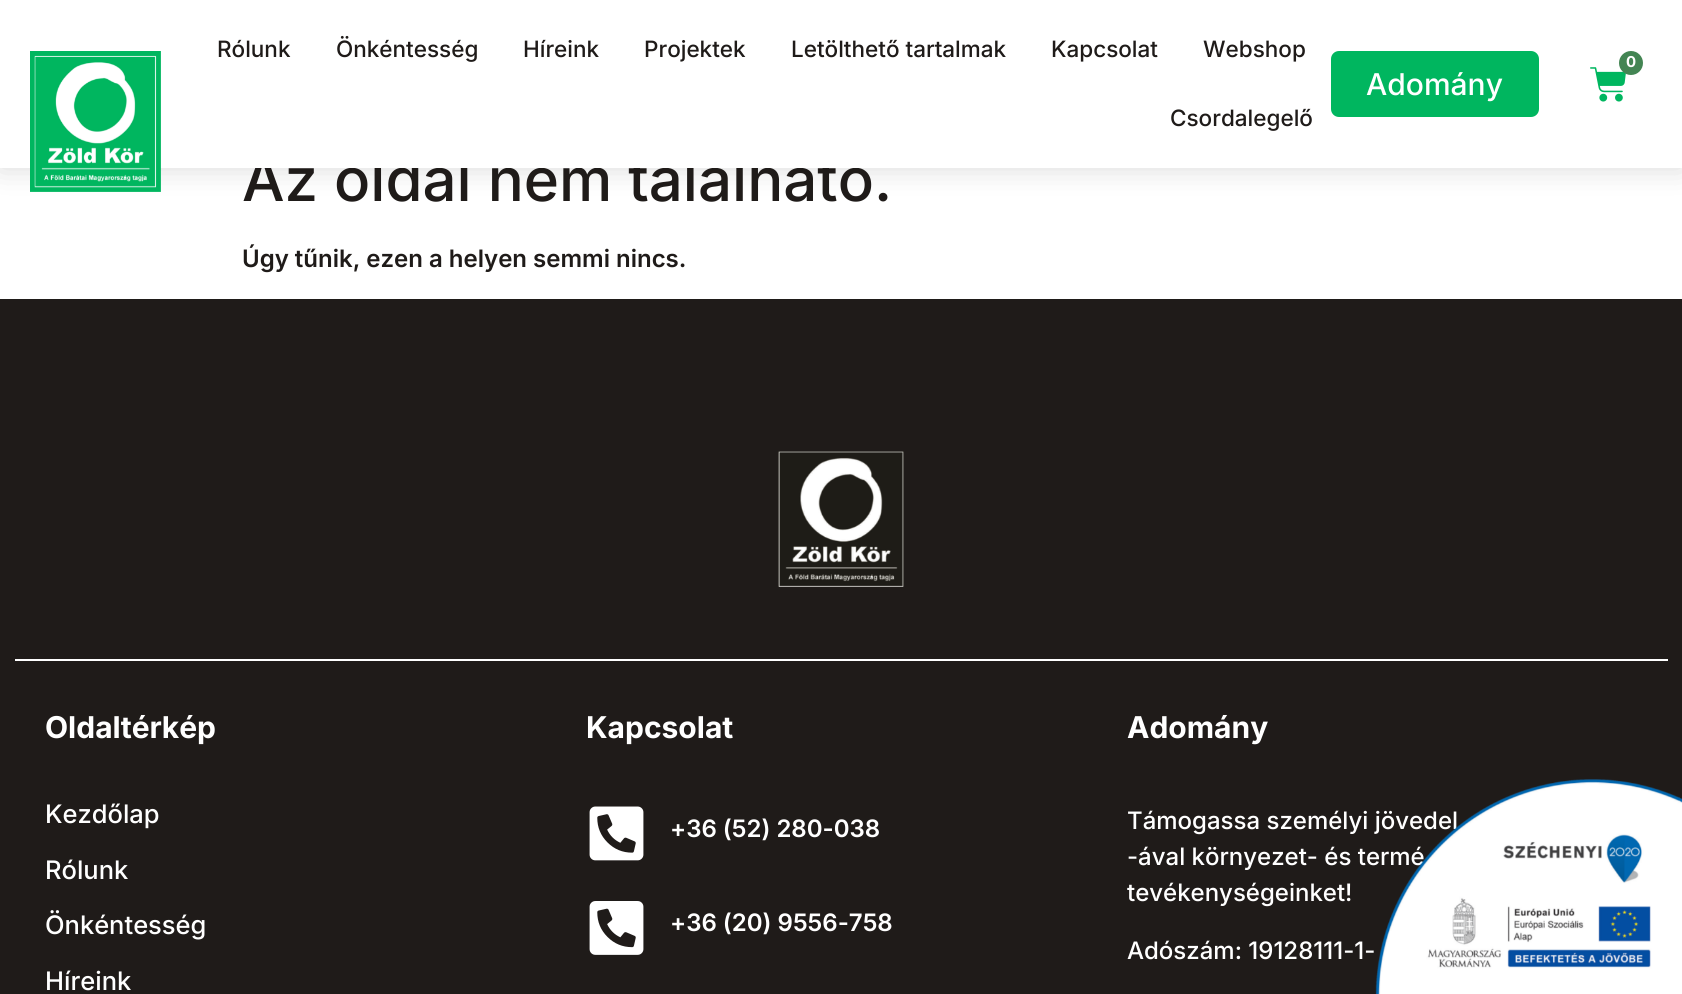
import math
import cairo


def round_path(ctx, x, y, w, h, r):
	ctx.new_sub_path()
	for i, (u, v) in enumerate([(x + w - r, y + h - r), (x + r, y + h - r), (x + r, y + r), (x + w - r, y + r)]):
		ctx.arc(u, v, r, i * math.pi / 2, (i + 1) * math.pi / 2)
	ctx.close_path()

def blur_box(ctx, x, y, w, h, r, blur, alpha):
	ctx.push_group_with_content(cairo.CONTENT_ALPHA)
	ctx.set_operator(cairo.OPERATOR_SOURCE)
	for i in range(15, -16, -2):
		e = blur * i / 6
		if min(w, h) + 2 * e > 0:
			ctx.set_source_rgba(0, 0, 0, alpha * math.erfc((i - 1) / 8.5) / 2)
			round_path(ctx, x - e, y - e, w + 2 * e, h + 2 * e, max(0, min(r + e + blur * .6, min(w, h) / 2 + e)))
			ctx.fill()
	ctx.mask(ctx.pop_group())

def paste(ctx, path, x, y, w, h):
	ctx.save()
	ctx.set_source_surface(cairo.ImageSurface.create_from_png(path), x, y)
	ctx.rectangle(x, y, w, h)
	ctx.fill()
	ctx.restore()

def draw(ctx):
	ctx.set_source_rgb(1, 1, 1)
	ctx.paint()
	ctx.set_source_rgb(0, 0, 0)
	blur_box(ctx, 0, 0, 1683, 168, 0, 15, 0.15)
	ctx.select_font_face('Inter Medium')
	ctx.set_font_size(60)
	ctx.set_source_rgb(0.122, 0.106, 0.098)
	ctx.move_to(242, 201)
	ctx.show_text('Az oldal nem található.')
	ctx.set_source_rgb(1, 1, 1)
	ctx.rectangle(0, 0, 1682, 168)
	ctx.fill()
	paste(ctx, 'media/1.png', 30, 51, 131, 141)
	ctx.set_font_size(22.5)
	ctx.set_source_rgb(0.122, 0.106, 0.098)
	for x, y, s in [
		(217, 57, 'Rólunk'),
		(336, 57, 'Önkéntesség'),
		(523, 57, 'Híreink'),
		(644, 57, 'Projektek'),
		(791, 57, 'Letölthető tartalmak'),
		(1051, 57, 'Kapcsolat'),
		(1203, 57, 'Webshop'),
		(1170, 126, 'Csordalegelő'),
	]:
		ctx.move_to(x, y)
		ctx.show_text(s)
	paste(ctx, 'media/2.png', 1590, 67, 36, 35)
	ctx.set_source_rgb(0.263, 0.522, 0.325)
	ctx.arc(1631, 63, 12, 0, 2 * math.pi)
	ctx.fill()
	ctx.select_font_face('Inter', cairo.FONT_SLANT_NORMAL, cairo.FONT_WEIGHT_BOLD)
	ctx.set_font_size(15)
	ctx.set_source_rgb(1, 1, 1)
	ctx.move_to(1626, 67)
	ctx.show_text('0')
	ctx.set_source_rgb(0, 0.714, 0.373)
	round_path(ctx, 1331, 51, 208, 66, 8)
	ctx.fill()
	ctx.select_font_face('Inter Medium')
	ctx.set_font_size(30)
	ctx.set_source_rgb(1, 1, 1)
	ctx.move_to(1366, 95)
	ctx.show_text('Adomány')
	ctx.select_font_face('Inter SemiBold')
	ctx.set_font_size(24)
	ctx.set_source_rgb(0.122, 0.106, 0.098)
	ctx.move_to(242, 267)
	ctx.show_text('Úgy tűnik, ezen a helyen semmi nincs.')
	ctx.rectangle(0, 299, 1682, 695)
	ctx.fill()
	paste(ctx, 'media/3.png', 778, 451, 126, 136)
	ctx.set_source_rgb(1, 1, 1)
	ctx.rectangle(15, 659, 1653, 2)
	ctx.fill()
	ctx.select_font_face('Inter', cairo.FONT_SLANT_NORMAL, cairo.FONT_WEIGHT_BOLD)
	ctx.set_font_size(30)
	ctx.move_to(45, 738)
	ctx.show_text('Oldaltérkép')
	ctx.select_font_face('Inter Medium')
	ctx.set_font_size(25.5)
	for x, y, s in [
		(45, 823, 'Kezdőlap'),
		(45, 879, 'Rólunk'),
		(45, 934, 'Önkéntesség'),
		(45, 990, 'Híreink'),
	]:
		ctx.move_to(x, y)
		ctx.show_text(s)
	ctx.select_font_face('Inter', cairo.FONT_SLANT_NORMAL, cairo.FONT_WEIGHT_BOLD)
	ctx.set_font_size(30)
	ctx.move_to(586, 738)
	ctx.show_text('Kapcsolat')
	paste(ctx, 'media/4.png', 589, 806, 55, 55)
	ctx.select_font_face('Inter SemiBold')
	ctx.set_font_size(24)
	ctx.move_to(670, 837)
	ctx.show_text('+36 (52) 280-038')
	paste(ctx, 'media/5.png', 589, 901, 55, 54)
	ctx.move_to(670, 931)
	ctx.show_text('+36 (20) 9556-758')
	ctx.select_font_face('Inter', cairo.FONT_SLANT_NORMAL, cairo.FONT_WEIGHT_BOLD)
	ctx.set_font_size(30)
	ctx.move_to(1127, 738)
	ctx.show_text('Adomány')
	ctx.select_font_face('Inter Medium')
	ctx.set_font_size(24)
	for x, y, s in [
		(1127, 829, 'Támogassa személyi jövedel'),
		(1127, 865, '-ával környezet- és termé'),
		(1127, 901, 'tevékenységeinket!'),
		(1127, 959, 'Adószám: 19128111-1-'),
	]:
		ctx.move_to(x, y)
		ctx.show_text(s)
	paste(ctx, 'media/6.png', 1375, 779, 307, 215)


surface = cairo.ImageSurface(cairo.FORMAT_RGB24, 1682, 994)
ctx = cairo.Context(surface)
options = cairo.FontOptions()
options.set_hint_metrics(cairo.HINT_METRICS_OFF)
options.set_hint_style(cairo.HINT_STYLE_NONE)
ctx.set_font_options(options)
ctx.set_miter_limit(4)
draw(ctx)
surface.write_to_png('image.png')
